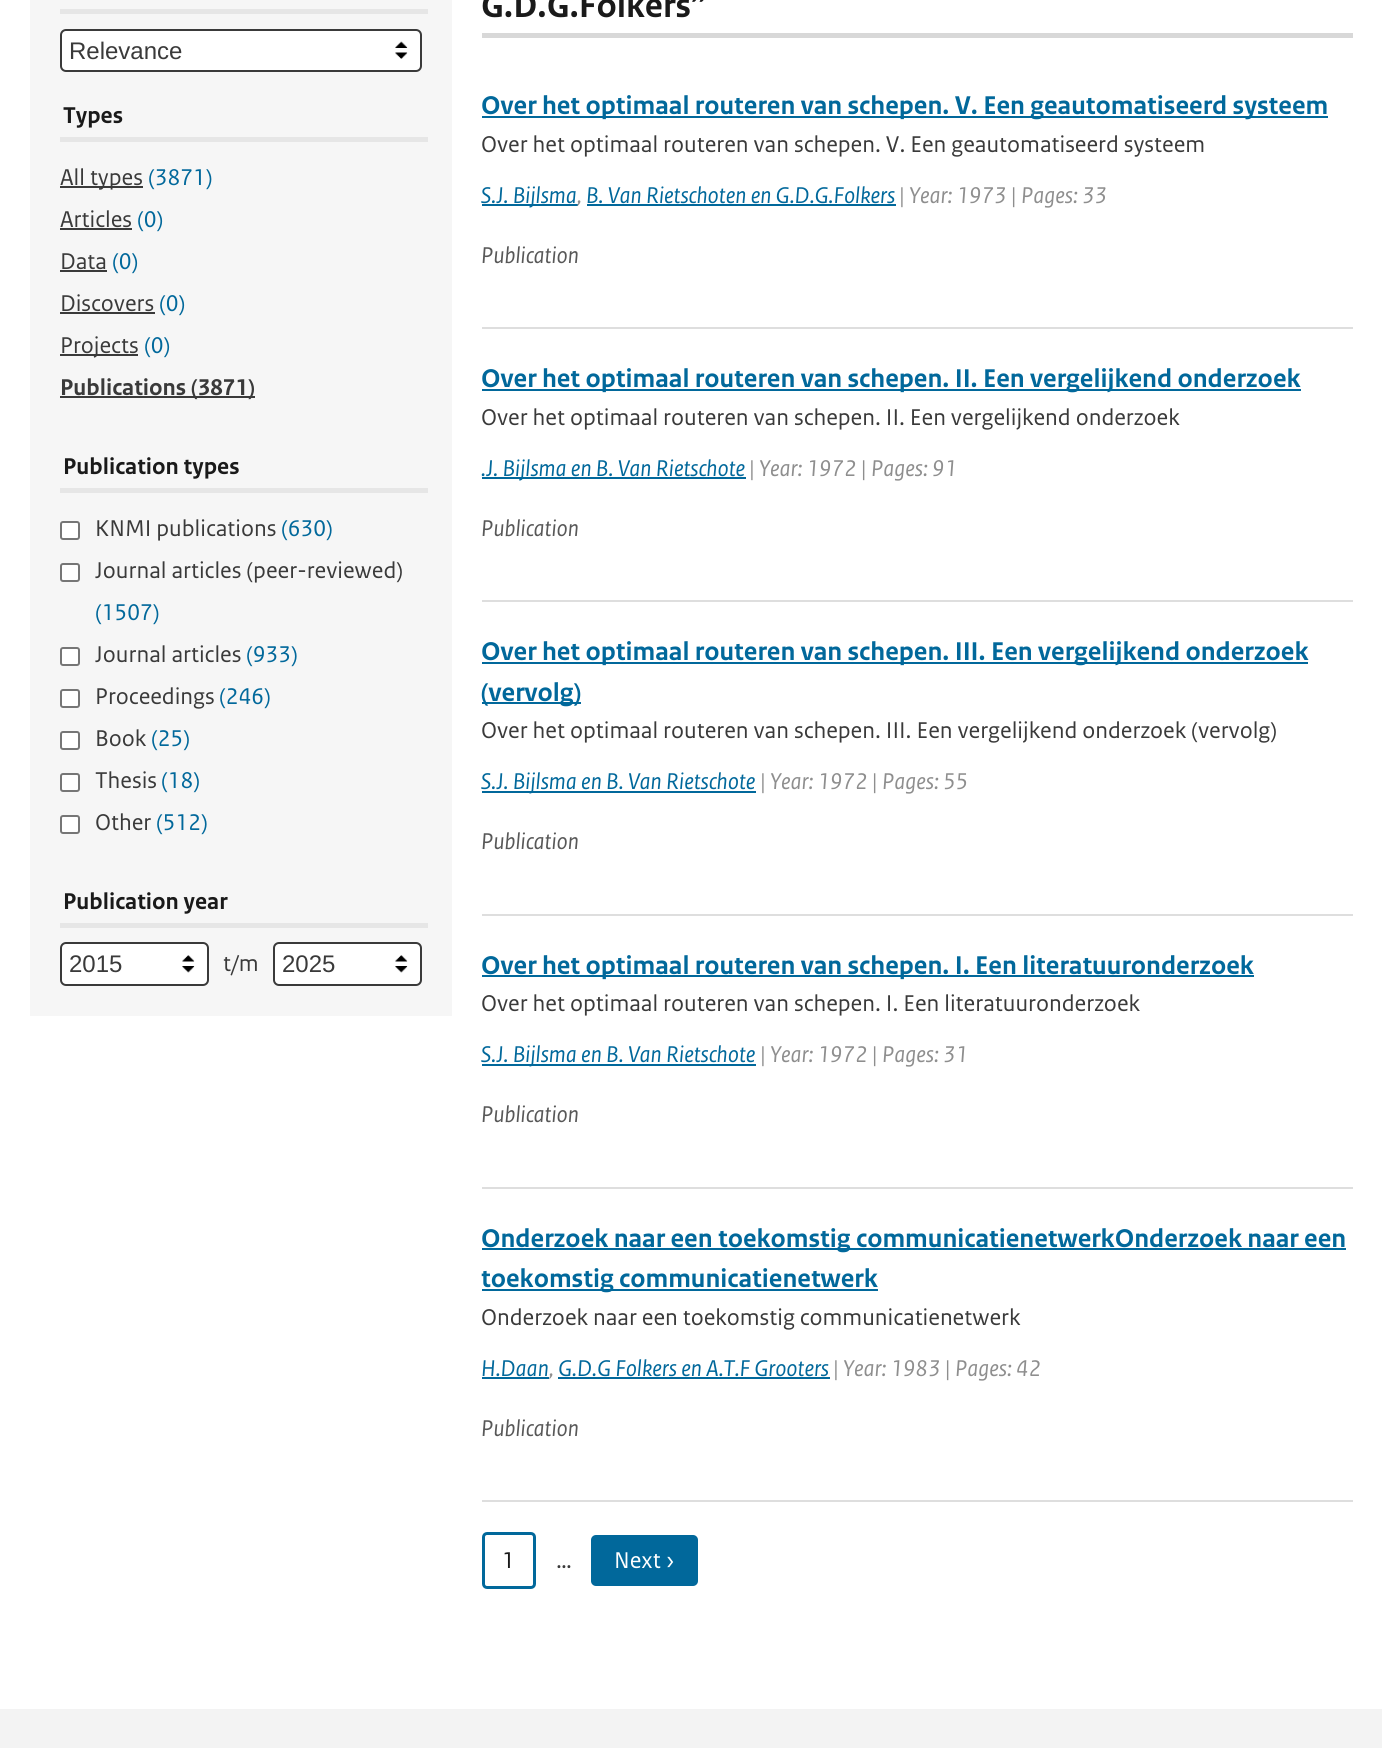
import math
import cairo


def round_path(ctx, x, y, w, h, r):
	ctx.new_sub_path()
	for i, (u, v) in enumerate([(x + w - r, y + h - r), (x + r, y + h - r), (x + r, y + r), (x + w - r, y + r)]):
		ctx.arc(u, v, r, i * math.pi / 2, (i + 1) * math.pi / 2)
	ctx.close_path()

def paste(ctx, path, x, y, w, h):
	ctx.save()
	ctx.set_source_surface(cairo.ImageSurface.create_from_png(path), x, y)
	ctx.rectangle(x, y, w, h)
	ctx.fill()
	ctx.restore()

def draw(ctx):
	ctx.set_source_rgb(1, 1, 1)
	ctx.paint()
	ctx.set_source_rgb(0.961, 0.961, 0.961)
	ctx.rectangle(30, 0, 422, 1016)
	ctx.fill()
	ctx.set_source_rgb(0.902, 0.902, 0.902)
	ctx.rectangle(60, 9, 368, 5)
	ctx.fill()
	ctx.set_source_rgb(1, 1, 1)
	round_path(ctx, 60, 29, 362, 43, 6)
	ctx.fill()
	paste(ctx, 'media/1.png', 395, 41, 13, 18)
	round_path(ctx, 61, 30, 360, 41, 5)
	ctx.set_source_rgb(0.227, 0.227, 0.227)
	ctx.stroke()
	ctx.select_font_face('Liberation Sans')
	ctx.set_font_size(24)
	ctx.move_to(69, 59)
	ctx.show_text('Relevance')
	ctx.set_source_rgb(0.902, 0.902, 0.902)
	ctx.rectangle(60, 137, 368, 5)
	ctx.fill()
	ctx.select_font_face('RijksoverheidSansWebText', cairo.FONT_SLANT_NORMAL, cairo.FONT_WEIGHT_BOLD)
	ctx.set_source_rgb(0.102, 0.102, 0.102)
	ctx.move_to(63, 123)
	ctx.show_text('Types')
	ctx.set_source_rgb(0.227, 0.227, 0.227)
	ctx.rectangle(60, 186, 83, 2)
	ctx.fill()
	ctx.select_font_face('RijksoverheidSansWebText')
	ctx.move_to(60, 185)
	ctx.show_text('All types')
	ctx.set_source_rgb(0.004, 0.408, 0.608)
	ctx.move_to(148, 185)
	ctx.show_text('(3871)')
	ctx.set_source_rgb(0.227, 0.227, 0.227)
	ctx.move_to(60, 227)
	ctx.show_text('Articles')
	ctx.rectangle(60, 228, 72, 2)
	ctx.fill()
	ctx.set_source_rgb(0.004, 0.408, 0.608)
	ctx.move_to(137, 227)
	ctx.show_text('(0)')
	ctx.set_source_rgb(0.227, 0.227, 0.227)
	ctx.move_to(60, 269)
	ctx.show_text('Data')
	ctx.rectangle(60, 270, 47, 2)
	ctx.fill()
	ctx.set_source_rgb(0.004, 0.408, 0.608)
	ctx.move_to(112, 269)
	ctx.show_text('(0)')
	ctx.set_source_rgb(0.227, 0.227, 0.227)
	ctx.move_to(60, 311)
	ctx.show_text('Discovers')
	ctx.rectangle(60, 312, 95, 2)
	ctx.fill()
	ctx.set_source_rgb(0.004, 0.408, 0.608)
	ctx.move_to(159, 311)
	ctx.show_text('(0)')
	ctx.set_source_rgb(0.227, 0.227, 0.227)
	ctx.rectangle(60, 354, 78, 2)
	ctx.fill()
	ctx.move_to(60, 353)
	ctx.show_text('Projects')
	ctx.set_source_rgb(0.004, 0.408, 0.608)
	ctx.move_to(144, 353)
	ctx.show_text('(0)')
	ctx.set_source_rgb(0.227, 0.227, 0.227)
	ctx.rectangle(60, 396, 195, 2)
	ctx.fill()
	ctx.select_font_face('RijksoverheidSansWebText', cairo.FONT_SLANT_NORMAL, cairo.FONT_WEIGHT_BOLD)
	ctx.move_to(60, 395)
	ctx.show_text('Publications (3871)')
	ctx.set_source_rgb(0.902, 0.902, 0.902)
	ctx.rectangle(60, 488, 368, 5)
	ctx.fill()
	ctx.set_source_rgb(0.102, 0.102, 0.102)
	ctx.move_to(63, 474)
	ctx.show_text('Publication types')
	ctx.set_source_rgb(1, 1, 1)
	round_path(ctx, 61, 522, 18, 17, 2)
	ctx.fill_preserve()
	ctx.set_source_rgb(0.463, 0.463, 0.463)
	ctx.stroke()
	ctx.select_font_face('RijksoverheidSansWebText')
	ctx.set_source_rgb(0.227, 0.227, 0.227)
	ctx.move_to(95, 536)
	ctx.show_text('KNMI publications')
	ctx.set_source_rgb(0.004, 0.408, 0.608)
	ctx.move_to(281, 536)
	ctx.show_text('(630)')
	ctx.set_source_rgb(1, 1, 1)
	round_path(ctx, 61, 564, 18, 17, 2)
	ctx.fill_preserve()
	ctx.set_source_rgb(0.463, 0.463, 0.463)
	ctx.stroke()
	ctx.set_source_rgb(0.227, 0.227, 0.227)
	ctx.move_to(95, 578)
	ctx.show_text('Journal articles (peer-reviewed)')
	ctx.set_source_rgb(0.004, 0.408, 0.608)
	ctx.move_to(95, 620)
	ctx.show_text('(1507)')
	ctx.set_source_rgb(1, 1, 1)
	round_path(ctx, 61, 648, 18, 17, 2)
	ctx.fill_preserve()
	ctx.set_source_rgb(0.463, 0.463, 0.463)
	ctx.stroke()
	ctx.set_source_rgb(0.227, 0.227, 0.227)
	ctx.move_to(95, 662)
	ctx.show_text('Journal articles')
	ctx.set_source_rgb(0.004, 0.408, 0.608)
	ctx.move_to(246, 662)
	ctx.show_text('(933)')
	ctx.set_source_rgb(1, 1, 1)
	round_path(ctx, 61, 690, 18, 17, 2)
	ctx.fill_preserve()
	ctx.set_source_rgb(0.463, 0.463, 0.463)
	ctx.stroke()
	ctx.set_source_rgb(0.227, 0.227, 0.227)
	ctx.move_to(95, 704)
	ctx.show_text('Proceedings')
	ctx.set_source_rgb(0.004, 0.408, 0.608)
	ctx.move_to(219, 704)
	ctx.show_text('(246)')
	ctx.set_source_rgb(1, 1, 1)
	round_path(ctx, 61, 732, 18, 17, 2)
	ctx.fill_preserve()
	ctx.set_source_rgb(0.463, 0.463, 0.463)
	ctx.stroke()
	ctx.set_source_rgb(0.227, 0.227, 0.227)
	ctx.move_to(95, 746)
	ctx.show_text('Book')
	ctx.set_source_rgb(0.004, 0.408, 0.608)
	ctx.move_to(151, 746)
	ctx.show_text('(25)')
	ctx.set_source_rgb(1, 1, 1)
	round_path(ctx, 61, 774, 18, 17, 2)
	ctx.fill_preserve()
	ctx.set_source_rgb(0.463, 0.463, 0.463)
	ctx.stroke()
	ctx.set_source_rgb(0.227, 0.227, 0.227)
	ctx.move_to(95, 788)
	ctx.show_text('Thesis')
	ctx.set_source_rgb(0.004, 0.408, 0.608)
	ctx.move_to(161, 788)
	ctx.show_text('(18)')
	ctx.set_source_rgb(1, 1, 1)
	round_path(ctx, 61, 816, 18, 17, 2)
	ctx.fill_preserve()
	ctx.set_source_rgb(0.463, 0.463, 0.463)
	ctx.stroke()
	ctx.set_source_rgb(0.227, 0.227, 0.227)
	ctx.move_to(95, 830)
	ctx.show_text('Other')
	ctx.set_source_rgb(0.004, 0.408, 0.608)
	ctx.move_to(156, 830)
	ctx.show_text('(512)')
	ctx.set_source_rgb(0.902, 0.902, 0.902)
	ctx.rectangle(60, 923, 368, 5)
	ctx.fill()
	ctx.select_font_face('RijksoverheidSansWebText', cairo.FONT_SLANT_NORMAL, cairo.FONT_WEIGHT_BOLD)
	ctx.set_source_rgb(0.102, 0.102, 0.102)
	ctx.move_to(63, 909)
	ctx.show_text('Publication year')
	ctx.set_source_rgb(1, 1, 1)
	round_path(ctx, 60, 942, 149, 44, 6)
	ctx.fill()
	paste(ctx, 'media/2.png', 182, 955, 13, 18)
	round_path(ctx, 61, 943, 147, 42, 5)
	ctx.set_source_rgb(0.227, 0.227, 0.227)
	ctx.stroke()
	ctx.select_font_face('Liberation Sans')
	ctx.move_to(69, 972)
	ctx.show_text('2015')
	ctx.select_font_face('RijksoverheidSansWebText')
	ctx.move_to(223, 971)
	ctx.show_text('t/m')
	ctx.set_source_rgb(1, 1, 1)
	round_path(ctx, 273, 942, 149, 44, 6)
	ctx.fill()
	paste(ctx, 'media/2.png', 395, 955, 13, 18)
	round_path(ctx, 274, 943, 147, 42, 5)
	ctx.set_source_rgb(0.227, 0.227, 0.227)
	ctx.stroke()
	ctx.select_font_face('Liberation Sans')
	ctx.move_to(282, 972)
	ctx.show_text('2025')
	ctx.set_source_rgb(0.847, 0.847, 0.847)
	ctx.rectangle(482, 33, 871, 5)
	ctx.fill()
	ctx.select_font_face('RijksoverheidSansWebText', cairo.FONT_SLANT_NORMAL, cairo.FONT_WEIGHT_BOLD)
	ctx.set_font_size(36)
	ctx.set_source_rgb(0.102, 0.102, 0.102)
	ctx.move_to(481, 17)
	ctx.show_text('G.D.G.Folkers”')
	ctx.set_source_rgb(0.871, 0.871, 0.871)
	ctx.rectangle(482, 327, 871, 2)
	ctx.fill()
	ctx.set_source_rgb(0.004, 0.408, 0.608)
	ctx.rectangle(482, 116, 846, 2)
	ctx.fill()
	ctx.set_font_size(27)
	ctx.move_to(481, 114)
	ctx.show_text('Over het optimaal routeren van schepen. V. Een geautomatiseerd systeem')
	ctx.select_font_face('RijksoverheidSansWebText')
	ctx.set_font_size(24)
	ctx.set_source_rgb(0.227, 0.227, 0.227)
	ctx.move_to(481, 152)
	ctx.show_text('Over het optimaal routeren van schepen. V. Een geautomatiseerd systeem')
	ctx.set_source_rgb(0.004, 0.408, 0.608)
	ctx.rectangle(482, 204, 96, 2)
	ctx.fill()
	ctx.select_font_face('RijksoverheidSansWebText', cairo.FONT_SLANT_ITALIC)
	ctx.move_to(481, 203)
	ctx.show_text('S.J. Bijlsma')
	ctx.set_source_rgb(0.557, 0.557, 0.557)
	ctx.move_to(577, 203)
	ctx.show_text(',')
	ctx.set_source_rgb(0.004, 0.408, 0.608)
	ctx.rectangle(587, 204, 309, 2)
	ctx.fill()
	ctx.move_to(586, 203)
	ctx.show_text('B. Van Rietschoten en G.D.G.Folkers')
	ctx.set_source_rgb(0.557, 0.557, 0.557)
	ctx.move_to(899, 203)
	ctx.show_text('| Year: 1973 | Pages: 33')
	ctx.set_source_rgb(0.345, 0.345, 0.345)
	ctx.move_to(481, 263)
	ctx.show_text('Publication')
	ctx.set_source_rgb(0.871, 0.871, 0.871)
	ctx.rectangle(482, 600, 871, 2)
	ctx.fill()
	ctx.set_source_rgb(0.004, 0.408, 0.608)
	ctx.rectangle(482, 389, 819, 2)
	ctx.fill()
	ctx.select_font_face('RijksoverheidSansWebText', cairo.FONT_SLANT_NORMAL, cairo.FONT_WEIGHT_BOLD)
	ctx.set_font_size(27)
	ctx.move_to(481, 387)
	ctx.show_text('Over het optimaal routeren van schepen. II. Een vergelijkend onderzoek')
	ctx.select_font_face('RijksoverheidSansWebText')
	ctx.set_font_size(24)
	ctx.set_source_rgb(0.227, 0.227, 0.227)
	ctx.move_to(481, 425)
	ctx.show_text('Over het optimaal routeren van schepen. II. Een vergelijkend onderzoek')
	ctx.set_source_rgb(0.004, 0.408, 0.608)
	ctx.rectangle(482, 477, 264, 2)
	ctx.fill()
	ctx.select_font_face('RijksoverheidSansWebText', cairo.FONT_SLANT_ITALIC)
	ctx.move_to(481, 476)
	ctx.show_text('.J. Bijlsma en B. Van Rietschote')
	ctx.set_source_rgb(0.557, 0.557, 0.557)
	ctx.move_to(749, 476)
	ctx.show_text('| Year: 1972 | Pages: 91')
	ctx.set_source_rgb(0.345, 0.345, 0.345)
	ctx.move_to(481, 536)
	ctx.show_text('Publication')
	ctx.set_source_rgb(0.871, 0.871, 0.871)
	ctx.rectangle(482, 914, 871, 2)
	ctx.fill()
	ctx.set_source_rgb(0.004, 0.408, 0.608)
	ctx.rectangle(482, 662, 826, 2)
	ctx.fill()
	ctx.select_font_face('RijksoverheidSansWebText', cairo.FONT_SLANT_NORMAL, cairo.FONT_WEIGHT_BOLD)
	ctx.set_font_size(27)
	ctx.move_to(481, 660)
	ctx.show_text('Over het optimaal routeren van schepen. III. Een vergelijkend onderzoek')
	ctx.rectangle(482, 702, 99, 2)
	ctx.fill()
	ctx.move_to(481, 701)
	ctx.show_text('(vervolg)')
	ctx.select_font_face('RijksoverheidSansWebText')
	ctx.set_font_size(24)
	ctx.set_source_rgb(0.227, 0.227, 0.227)
	ctx.move_to(481, 738)
	ctx.show_text('Over het optimaal routeren van schepen. III. Een vergelijkend onderzoek (vervolg)')
	ctx.set_source_rgb(0.004, 0.408, 0.608)
	ctx.rectangle(482, 791, 274, 2)
	ctx.fill()
	ctx.select_font_face('RijksoverheidSansWebText', cairo.FONT_SLANT_ITALIC)
	ctx.move_to(481, 789)
	ctx.show_text('S.J. Bijlsma en B. Van Rietschote')
	ctx.set_source_rgb(0.557, 0.557, 0.557)
	ctx.move_to(760, 789)
	ctx.show_text('| Year: 1972 | Pages: 55')
	ctx.set_source_rgb(0.345, 0.345, 0.345)
	ctx.move_to(481, 849)
	ctx.show_text('Publication')
	ctx.set_source_rgb(0.871, 0.871, 0.871)
	ctx.rectangle(482, 1187, 871, 2)
	ctx.fill()
	ctx.set_source_rgb(0.004, 0.408, 0.608)
	ctx.rectangle(482, 975, 772, 2)
	ctx.fill()
	ctx.select_font_face('RijksoverheidSansWebText', cairo.FONT_SLANT_NORMAL, cairo.FONT_WEIGHT_BOLD)
	ctx.set_font_size(27)
	ctx.move_to(481, 974)
	ctx.show_text('Over het optimaal routeren van schepen. I. Een literatuuronderzoek')
	ctx.select_font_face('RijksoverheidSansWebText')
	ctx.set_font_size(24)
	ctx.set_source_rgb(0.227, 0.227, 0.227)
	ctx.move_to(481, 1011)
	ctx.show_text('Over het optimaal routeren van schepen. I. Een literatuuronderzoek')
	ctx.set_source_rgb(0.004, 0.408, 0.608)
	ctx.rectangle(482, 1064, 274, 2)
	ctx.fill()
	ctx.select_font_face('RijksoverheidSansWebText', cairo.FONT_SLANT_ITALIC)
	ctx.move_to(481, 1062)
	ctx.show_text('S.J. Bijlsma en B. Van Rietschote')
	ctx.set_source_rgb(0.557, 0.557, 0.557)
	ctx.move_to(760, 1062)
	ctx.show_text('| Year: 1972 | Pages: 31')
	ctx.set_source_rgb(0.345, 0.345, 0.345)
	ctx.move_to(481, 1122)
	ctx.show_text('Publication')
	ctx.set_source_rgb(0.871, 0.871, 0.871)
	ctx.rectangle(482, 1500, 871, 2)
	ctx.fill()
	ctx.set_source_rgb(0.004, 0.408, 0.608)
	ctx.rectangle(482, 1248, 864, 2)
	ctx.fill()
	ctx.select_font_face('RijksoverheidSansWebText', cairo.FONT_SLANT_NORMAL, cairo.FONT_WEIGHT_BOLD)
	ctx.set_font_size(27)
	ctx.move_to(481, 1247)
	ctx.show_text('Onderzoek naar een toekomstig communicatienetwerkOnderzoek naar een')
	ctx.rectangle(482, 1289, 396, 2)
	ctx.fill()
	ctx.move_to(481, 1287)
	ctx.show_text('toekomstig communicatienetwerk')
	ctx.select_font_face('RijksoverheidSansWebText')
	ctx.set_font_size(24)
	ctx.set_source_rgb(0.227, 0.227, 0.227)
	ctx.move_to(481, 1325)
	ctx.show_text('Onderzoek naar een toekomstig communicatienetwerk')
	ctx.select_font_face('RijksoverheidSansWebText', cairo.FONT_SLANT_ITALIC)
	ctx.set_source_rgb(0.004, 0.408, 0.608)
	ctx.move_to(481, 1376)
	ctx.show_text('H.Daan')
	ctx.rectangle(482, 1377, 67, 2)
	ctx.fill()
	ctx.set_source_rgb(0.557, 0.557, 0.557)
	ctx.move_to(549, 1376)
	ctx.show_text(',')
	ctx.set_source_rgb(0.004, 0.408, 0.608)
	ctx.rectangle(558, 1377, 272, 2)
	ctx.fill()
	ctx.move_to(558, 1376)
	ctx.show_text('G.D.G Folkers en A.T.F Grooters')
	ctx.set_source_rgb(0.557, 0.557, 0.557)
	ctx.move_to(833, 1376)
	ctx.show_text('| Year: 1983 | Pages: 42')
	ctx.set_source_rgb(0.345, 0.345, 0.345)
	ctx.move_to(481, 1436)
	ctx.show_text('Publication')
	round_path(ctx, 483.5, 1533.5, 51, 54, 3.5)
	ctx.set_source_rgb(0.004, 0.408, 0.608)
	ctx.set_line_width(3)
	ctx.stroke()
	ctx.select_font_face('RijksoverheidSansWebText')
	ctx.set_source_rgb(0.102, 0.102, 0.102)
	ctx.move_to(502, 1568)
	ctx.show_text('1')
	ctx.set_source_rgb(0.227, 0.227, 0.227)
	ctx.move_to(556, 1568)
	ctx.show_text('…')
	ctx.set_source_rgb(0.004, 0.408, 0.608)
	round_path(ctx, 591, 1535, 107, 51, 5)
	ctx.fill()
	ctx.set_source_rgb(1, 1, 1)
	ctx.move_to(614, 1568)
	ctx.show_text('Next ›')
	ctx.set_source_rgb(0.953, 0.953, 0.953)
	ctx.rectangle(0, 1709, 1382, 39)
	ctx.fill()


surface = cairo.ImageSurface(cairo.FORMAT_RGB24, 1382, 1748)
ctx = cairo.Context(surface)
options = cairo.FontOptions()
options.set_hint_metrics(cairo.HINT_METRICS_OFF)
options.set_hint_style(cairo.HINT_STYLE_NONE)
ctx.set_font_options(options)
ctx.set_miter_limit(4)
draw(ctx)
surface.write_to_png('image.png')
